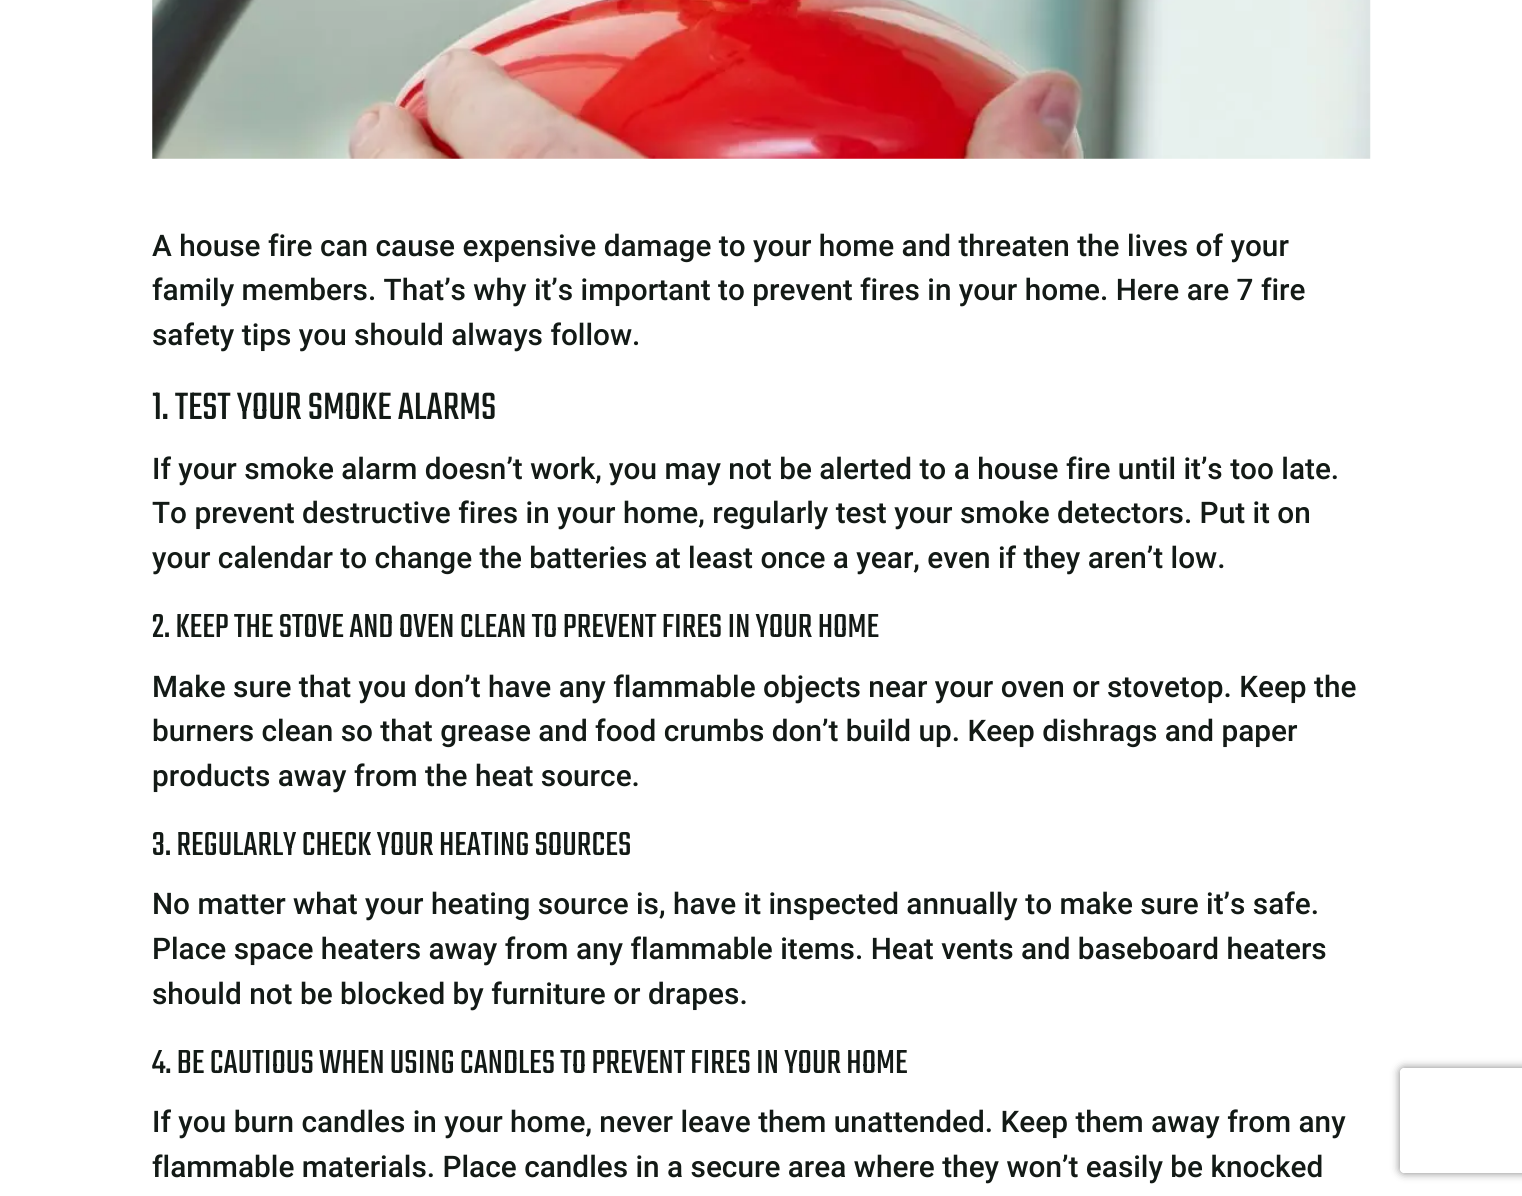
import math
import cairo


def round_path(ctx, x, y, w, h, r):
	ctx.new_sub_path()
	for i, (u, v) in enumerate([(x + w - r, y + h - r), (x + r, y + h - r), (x + r, y + r), (x + w - r, y + r)]):
		ctx.arc(u, v, r, i * math.pi / 2, (i + 1) * math.pi / 2)
	ctx.close_path()

def blur_box(ctx, x, y, w, h, r, blur, alpha):
	ctx.push_group_with_content(cairo.CONTENT_ALPHA)
	ctx.set_operator(cairo.OPERATOR_SOURCE)
	for i in range(15, -16, -2):
		e = blur * i / 6
		if min(w, h) + 2 * e > 0:
			ctx.set_source_rgba(0, 0, 0, alpha * math.erfc((i - 1) / 8.5) / 2)
			round_path(ctx, x - e, y - e, w + 2 * e, h + 2 * e, max(0, min(r + e + blur * .6, min(w, h) / 2 + e)))
			ctx.fill()
	ctx.mask(ctx.pop_group())

def paste(ctx, path, x, y, w, h):
	ctx.save()
	ctx.set_source_surface(cairo.ImageSurface.create_from_png(path), x, y)
	ctx.rectangle(x, y, w, h)
	ctx.fill()
	ctx.restore()

def draw(ctx):
	ctx.set_source_rgb(1, 1, 1)
	ctx.paint()
	paste(ctx, 'media/1.png', 152, 0, 1219, 159)
	ctx.select_font_face('Roboto Medium')
	ctx.set_font_size(29.75)
	ctx.set_source_rgb(0.078, 0.102, 0.086)
	for x, y, s in [
		(152, 256, 'A house fire can cause expensive damage to your home and threaten the lives of your'),
		(152, 300, 'family members. That’s why it’s important to prevent fires in your home. Here are 7 fire'),
		(152, 345, 'safety tips you should always follow.'),
	]:
		ctx.move_to(x, y)
		ctx.show_text(s)
	ctx.select_font_face('Teko')
	ctx.set_font_size(42)
	ctx.move_to(152, 419)
	ctx.show_text('1. TEST YOUR SMOKE ALARMS')
	ctx.select_font_face('Roboto Medium')
	ctx.set_font_size(29.75)
	for x, y, s in [
		(152, 479, 'If your smoke alarm doesn’t work, you may not be alerted to a house fire until it’s too late.'),
		(152, 523, 'To prevent destructive fires in your home, regularly test your smoke detectors. Put it on'),
		(152, 568, 'your calendar to change the batteries at least once a year, even if they aren’t low.'),
	]:
		ctx.move_to(x, y)
		ctx.show_text(s)
	ctx.select_font_face('Teko')
	ctx.set_font_size(36.75)
	ctx.move_to(152, 637)
	ctx.show_text('2. KEEP THE STOVE AND OVEN CLEAN TO PREVENT FIRES IN YOUR HOME')
	ctx.select_font_face('Roboto Medium')
	ctx.set_font_size(29.75)
	for x, y, s in [
		(152, 697, 'Make sure that you don’t have any flammable objects near your oven or stovetop. Keep the'),
		(152, 741, 'burners clean so that grease and food crumbs don’t build up. Keep dishrags and paper'),
		(152, 786, 'products away from the heat source.'),
	]:
		ctx.move_to(x, y)
		ctx.show_text(s)
	ctx.select_font_face('Teko')
	ctx.set_font_size(36.75)
	ctx.move_to(152, 855)
	ctx.show_text('3. REGULARLY CHECK YOUR HEATING SOURCES')
	ctx.select_font_face('Roboto Medium')
	ctx.set_font_size(29.75)
	for x, y, s in [
		(152, 914, 'No matter what your heating source is, have it inspected annually to make sure it’s safe.'),
		(152, 959, 'Place space heaters away from any flammable items. Heat vents and baseboard heaters'),
		(152, 1004, 'should not be blocked by furniture or drapes.'),
	]:
		ctx.move_to(x, y)
		ctx.show_text(s)
	ctx.select_font_face('Teko')
	ctx.set_font_size(36.75)
	ctx.move_to(152, 1073)
	ctx.show_text('4. BE CAUTIOUS WHEN USING CANDLES TO PREVENT FIRES IN YOUR HOME')
	ctx.select_font_face('Roboto Medium')
	ctx.set_font_size(29.75)
	ctx.move_to(152, 1132)
	ctx.show_text('If you burn candles in your home, never leave them unattended. Keep them away from any')
	ctx.move_to(152, 1177)
	ctx.show_text('flammable materials. Place candles in a secure area where they won’t easily be knocked')
	ctx.save()
	ctx.set_fill_rule(cairo.FILL_RULE_EVEN_ODD)
	ctx.new_path()
	ctx.move_to(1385, 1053)
	ctx.line_to(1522, 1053)
	ctx.line_to(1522, 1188)
	ctx.line_to(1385, 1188)
	ctx.close_path()
	ctx.move_to(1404, 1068)
	ctx.line_to(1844, 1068)
	ctx.curve_to(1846, 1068, 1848, 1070, 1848, 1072)
	ctx.line_to(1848, 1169)
	ctx.curve_to(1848, 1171, 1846, 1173, 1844, 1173)
	ctx.line_to(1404, 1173)
	ctx.curve_to(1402, 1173, 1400, 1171, 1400, 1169)
	ctx.line_to(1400, 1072)
	ctx.curve_to(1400, 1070, 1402, 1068, 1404, 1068)
	ctx.close_path()
	ctx.clip()
	ctx.set_source_rgb(0.502, 0.502, 0.502)
	blur_box(ctx, 1400, 1068, 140, 105, 4, 4.5, 1)
	ctx.restore()


surface = cairo.ImageSurface(cairo.FORMAT_RGB24, 1522, 1196)
ctx = cairo.Context(surface)
options = cairo.FontOptions()
options.set_hint_metrics(cairo.HINT_METRICS_OFF)
options.set_hint_style(cairo.HINT_STYLE_NONE)
ctx.set_font_options(options)
ctx.set_miter_limit(4)
draw(ctx)
surface.write_to_png('image.png')
